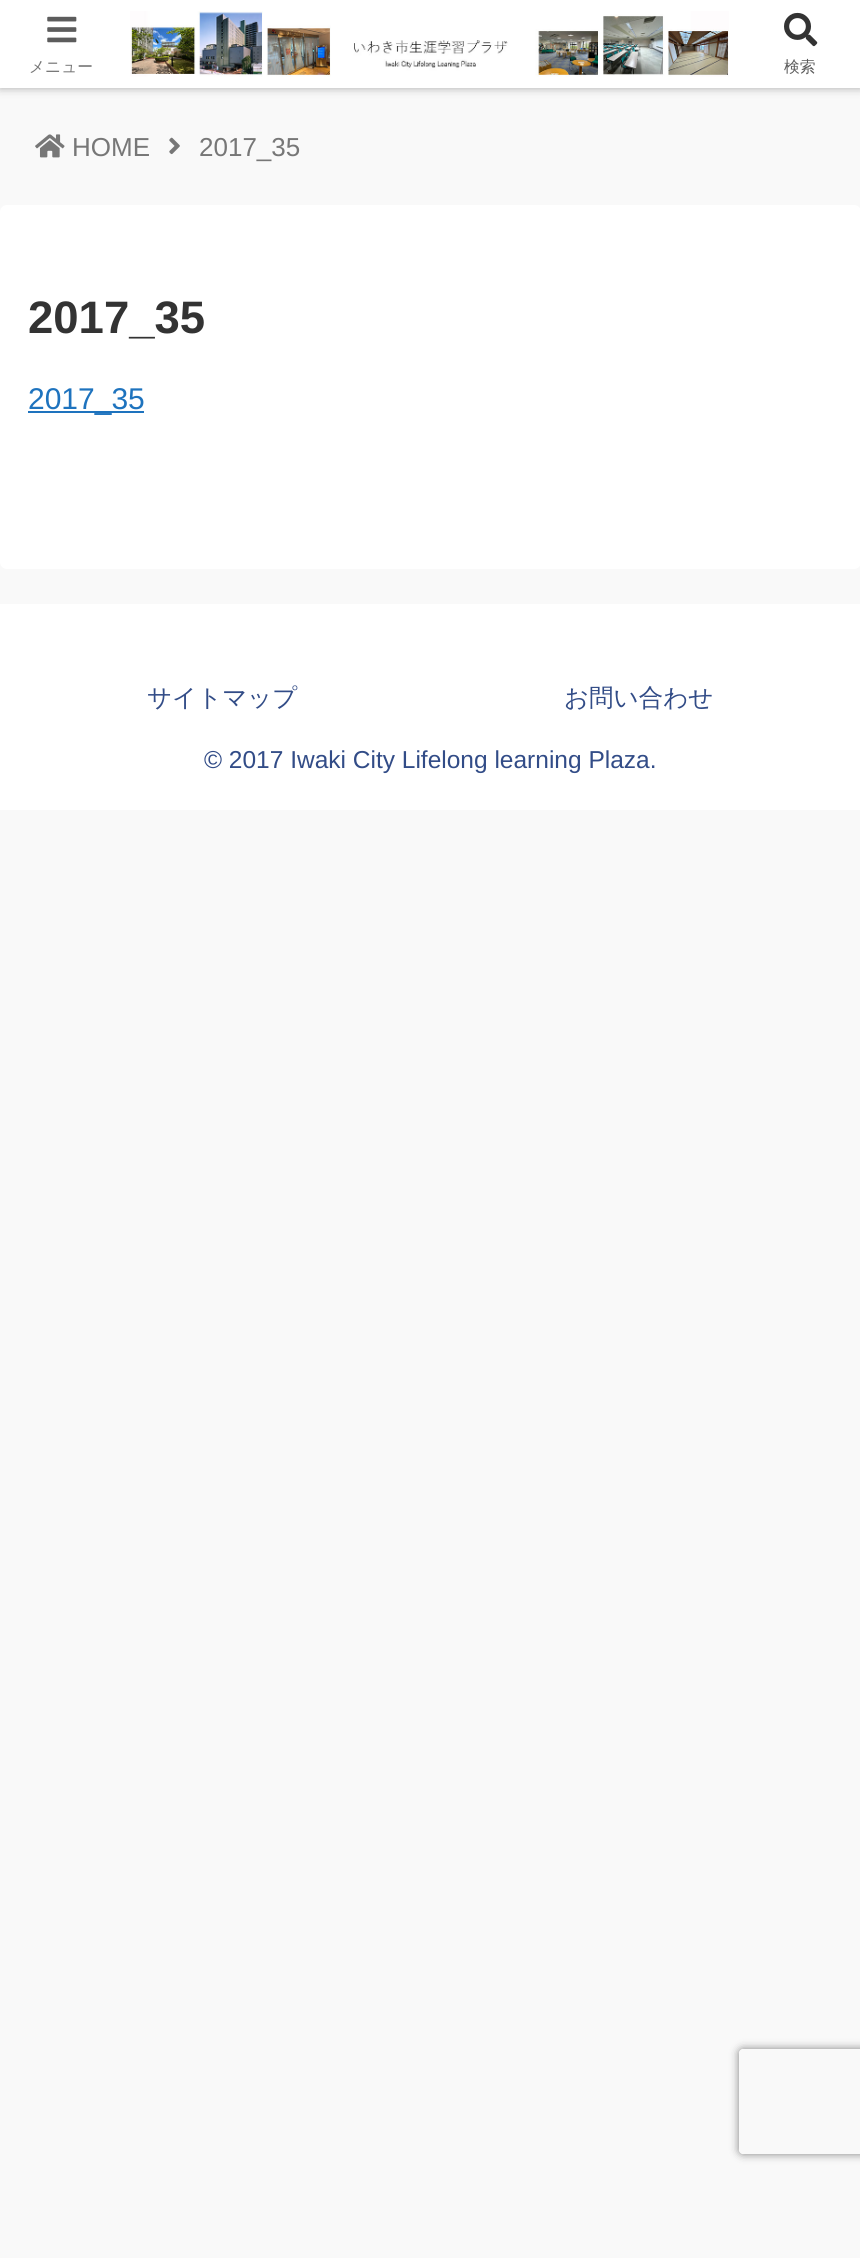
import math
import cairo


def round_path(ctx, x, y, w, h, r):
	ctx.new_sub_path()
	for i, (u, v) in enumerate([(x + w - r, y + h - r), (x + r, y + h - r), (x + r, y + r), (x + w - r, y + r)]):
		ctx.arc(u, v, r, i * math.pi / 2, (i + 1) * math.pi / 2)
	ctx.close_path()

def blur_box(ctx, x, y, w, h, r, blur, alpha):
	ctx.push_group_with_content(cairo.CONTENT_ALPHA)
	ctx.set_operator(cairo.OPERATOR_SOURCE)
	for i in range(15, -16, -2):
		e = blur * i / 6
		if min(w, h) + 2 * e > 0:
			ctx.set_source_rgba(0, 0, 0, alpha * math.erfc((i - 1) / 8.5) / 2)
			round_path(ctx, x - e, y - e, w + 2 * e, h + 2 * e, max(0, min(r + e + blur * .6, min(w, h) / 2 + e)))
			ctx.fill()
	ctx.mask(ctx.pop_group())

def paste(ctx, path, x, y, w, h):
	ctx.save()
	ctx.set_source_surface(cairo.ImageSurface.create_from_png(path), x, y)
	ctx.rectangle(x, y, w, h)
	ctx.fill()
	ctx.restore()

def draw(ctx):
	ctx.set_source_rgb(0.976, 0.976, 0.976)
	ctx.paint()
	ctx.set_source_rgb(0.663, 0.663, 0.663)
	blur_box(ctx, 0, 0, 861, 88, 0, 4.5, 1)
	ctx.set_source_rgb(1, 1, 1)
	ctx.rectangle(0, 0, 860, 88)
	ctx.fill()
	paste(ctx, 'media/1.png', 47, 16, 30, 27)
	ctx.select_font_face('WenQuanYi Zen Hei Medium')
	ctx.set_font_size(15.75)
	ctx.set_source_rgb(0.467, 0.467, 0.467)
	ctx.move_to(29, 72)
	ctx.show_text('メニュー')
	paste(ctx, 'media/2.png', 130, 11, 599, 66)
	paste(ctx, 'media/3.png', 784, 12, 34, 35)
	ctx.set_source_rgb(0.361, 0.361, 0.361)
	ctx.move_to(784, 72)
	ctx.show_text('検索')
	paste(ctx, 'media/4.png', 35, 134, 30, 24)
	ctx.select_font_face('Liberation Sans')
	ctx.set_font_size(26)
	ctx.set_source_rgb(0.467, 0.467, 0.467)
	ctx.move_to(72, 156)
	ctx.show_text('HOME')
	paste(ctx, 'media/5.png', 169, 137, 11, 18)
	ctx.move_to(199, 156)
	ctx.show_text('2017_35')
	ctx.set_source_rgb(1, 1, 1)
	round_path(ctx, 0, 205, 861, 364, 7)
	ctx.fill()
	ctx.select_font_face('Liberation Sans', cairo.FONT_SLANT_NORMAL, cairo.FONT_WEIGHT_BOLD)
	ctx.set_font_size(45.5)
	ctx.set_source_rgb(0.2, 0.2, 0.2)
	ctx.move_to(28, 333)
	ctx.show_text('2017_35')
	ctx.set_source_rgb(0.118, 0.451, 0.745)
	ctx.rectangle(28, 411, 116, 2)
	ctx.fill()
	ctx.select_font_face('Liberation Sans')
	ctx.set_font_size(30)
	ctx.move_to(28, 409)
	ctx.show_text('2017_35')
	ctx.set_source_rgb(1, 1, 1)
	ctx.rectangle(0, 604, 860, 206)
	ctx.fill()
	ctx.select_font_face('WenQuanYi Zen Hei Medium')
	ctx.set_font_size(24.5)
	ctx.set_source_rgb(0.196, 0.298, 0.529)
	ctx.move_to(147, 706)
	ctx.show_text('サイトマップ')
	ctx.move_to(564, 706)
	ctx.show_text('お問い合わせ')
	ctx.select_font_face('Liberation Sans')
	ctx.move_to(204, 768)
	ctx.show_text('© 2017 Iwaki City Lifelong learning Plaza.')
	ctx.save()
	ctx.set_fill_rule(cairo.FILL_RULE_EVEN_ODD)
	ctx.new_path()
	ctx.move_to(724, 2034)
	ctx.line_to(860, 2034)
	ctx.line_to(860, 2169)
	ctx.line_to(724, 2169)
	ctx.close_path()
	ctx.move_to(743, 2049)
	ctx.line_to(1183, 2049)
	ctx.curve_to(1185, 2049, 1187, 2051, 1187, 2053)
	ctx.line_to(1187, 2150)
	ctx.curve_to(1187, 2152, 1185, 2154, 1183, 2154)
	ctx.line_to(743, 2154)
	ctx.curve_to(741, 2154, 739, 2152, 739, 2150)
	ctx.line_to(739, 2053)
	ctx.curve_to(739, 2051, 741, 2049, 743, 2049)
	ctx.close_path()
	ctx.clip()
	ctx.set_source_rgb(0.502, 0.502, 0.502)
	blur_box(ctx, 739, 2049, 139, 105, 4, 4.5, 1)
	ctx.restore()


surface = cairo.ImageSurface(cairo.FORMAT_RGB24, 860, 2258)
ctx = cairo.Context(surface)
options = cairo.FontOptions()
options.set_hint_metrics(cairo.HINT_METRICS_OFF)
options.set_hint_style(cairo.HINT_STYLE_NONE)
ctx.set_font_options(options)
ctx.set_miter_limit(4)
draw(ctx)
surface.write_to_png('image.png')
